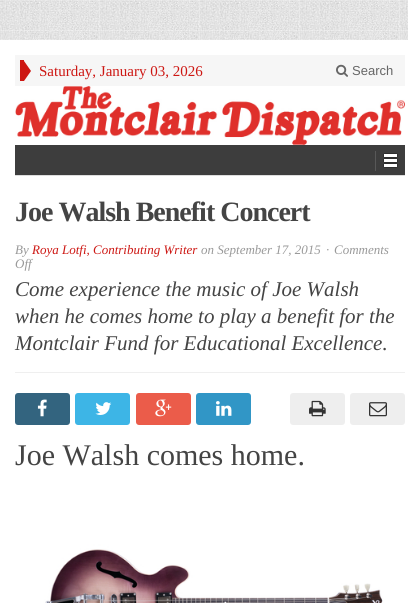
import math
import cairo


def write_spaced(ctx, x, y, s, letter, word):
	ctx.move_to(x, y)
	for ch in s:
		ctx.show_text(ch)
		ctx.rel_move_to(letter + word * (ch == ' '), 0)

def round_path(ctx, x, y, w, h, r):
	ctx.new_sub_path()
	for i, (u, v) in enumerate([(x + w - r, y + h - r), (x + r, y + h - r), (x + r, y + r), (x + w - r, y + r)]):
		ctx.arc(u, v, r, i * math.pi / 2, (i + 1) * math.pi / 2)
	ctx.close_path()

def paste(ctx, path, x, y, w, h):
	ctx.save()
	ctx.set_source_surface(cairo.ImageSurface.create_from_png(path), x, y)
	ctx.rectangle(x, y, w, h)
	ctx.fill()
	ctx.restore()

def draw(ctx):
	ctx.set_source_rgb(1, 1, 1)
	ctx.paint()
	paste(ctx, 'media/1.png', 0, 0, 408, 40)
	ctx.set_source_rgb(0.961, 0.961, 0.961)
	ctx.rectangle(15, 55, 390, 31)
	ctx.fill()
	ctx.set_source_rgb(0.804, 0.09, 0.075)
	ctx.rectangle(20, 60, 4, 21)
	ctx.fill()
	ctx.new_path()
	ctx.move_to(24, 81)
	ctx.line_to(24, 61)
	ctx.line_to(31, 71)
	ctx.close_path()
	ctx.fill()
	ctx.select_font_face('Liberation Serif')
	ctx.set_font_size(15)
	ctx.move_to(39, 76)
	ctx.show_text('Saturday, January 03, 2026')
	paste(ctx, 'media/2.png', 336, 64, 12, 13)
	ctx.select_font_face('Liberation Sans')
	ctx.set_font_size(13)
	ctx.set_source_rgb(0.4, 0.4, 0.4)
	ctx.move_to(352, 75)
	ctx.show_text('Search')
	paste(ctx, 'media/3.png', 15, 86, 390, 59)
	ctx.set_source_rgb(0.867, 0.867, 0.867)
	ctx.rectangle(15, 175, 390, 1)
	ctx.fill()
	ctx.set_source_rgb(0.239, 0.239, 0.239)
	ctx.rectangle(15, 145, 390, 30)
	ctx.fill()
	paste(ctx, 'media/4.png', 375, 151, 23, 20)
	ctx.set_source_rgb(0.937, 0.937, 0.937)
	ctx.rectangle(15, 372, 390, 1)
	ctx.fill()
	ctx.select_font_face('Liberation Serif', cairo.FONT_SLANT_NORMAL, cairo.FONT_WEIGHT_BOLD)
	ctx.set_font_size(28)
	ctx.set_source_rgb(0.267, 0.267, 0.267)
	write_spaced(ctx, 15, 221, 'Joe Walsh Benefit Concert', -1, 0)
	ctx.select_font_face('Liberation Serif', cairo.FONT_SLANT_ITALIC)
	ctx.set_font_size(13)
	ctx.set_source_rgb(0.6, 0.6, 0.6)
	ctx.move_to(15, 254)
	ctx.show_text('By')
	ctx.set_source_rgb(0.804, 0.09, 0.075)
	ctx.move_to(32, 254)
	ctx.show_text('Roya Lotfi, Contributing Writer')
	ctx.set_source_rgb(0.6, 0.6, 0.6)
	for x, y, s in [
		(201, 254, 'on September 17, 2015'),
		(326, 254, '·'),
		(334, 254, 'Comments'),
		(15, 268, 'Off'),
	]:
		ctx.move_to(x, y)
		ctx.show_text(s)
	ctx.set_font_size(21)
	ctx.set_source_rgb(0.267, 0.267, 0.267)
	for x, y, s in [
		(15, 296, 'Come experience the music of Joe Walsh'),
		(15, 323, 'when he comes home to play a benefit for the'),
		(15, 350, 'Montclair Fund for Educational Excellence.'),
	]:
		ctx.move_to(x, y)
		ctx.show_text(s)
	ctx.set_source_rgb(0.2, 0.392, 0.498)
	round_path(ctx, 15, 393, 55, 32, 3)
	ctx.fill()
	paste(ctx, 'media/5.png', 37, 399, 10, 18)
	ctx.set_source_rgb(0.239, 0.71, 0.902)
	round_path(ctx, 75, 393, 55, 32, 3)
	ctx.fill()
	paste(ctx, 'media/6.png', 95, 402, 17, 13)
	ctx.set_source_rgb(0.918, 0.361, 0.29)
	round_path(ctx, 136, 393, 55, 32, 3)
	ctx.fill()
	paste(ctx, 'media/7.png', 155, 399, 17, 18)
	ctx.set_source_rgb(0.192, 0.588, 0.776)
	round_path(ctx, 196, 393, 55, 32, 3)
	ctx.fill()
	paste(ctx, 'media/8.png', 216, 401, 16, 15)
	ctx.set_source_rgb(0.933, 0.933, 0.933)
	round_path(ctx, 290, 393, 55, 32, 3)
	ctx.fill()
	paste(ctx, 'media/9.png', 309, 400, 17, 17)
	round_path(ctx, 350, 393, 55, 32, 3)
	ctx.fill()
	paste(ctx, 'media/10.png', 369, 402, 18, 15)
	ctx.select_font_face('Liberation Serif')
	ctx.set_font_size(30)
	ctx.set_source_rgb(0.267, 0.267, 0.267)
	ctx.move_to(15, 465)
	ctx.show_text('Joe Walsh comes home.')
	paste(ctx, 'media/11.png', 23, 481, 382, 122)


surface = cairo.ImageSurface(cairo.FORMAT_RGB24, 408, 603)
ctx = cairo.Context(surface)
options = cairo.FontOptions()
options.set_hint_metrics(cairo.HINT_METRICS_OFF)
options.set_hint_style(cairo.HINT_STYLE_NONE)
ctx.set_font_options(options)
ctx.set_miter_limit(4)
draw(ctx)
surface.write_to_png('image.png')
